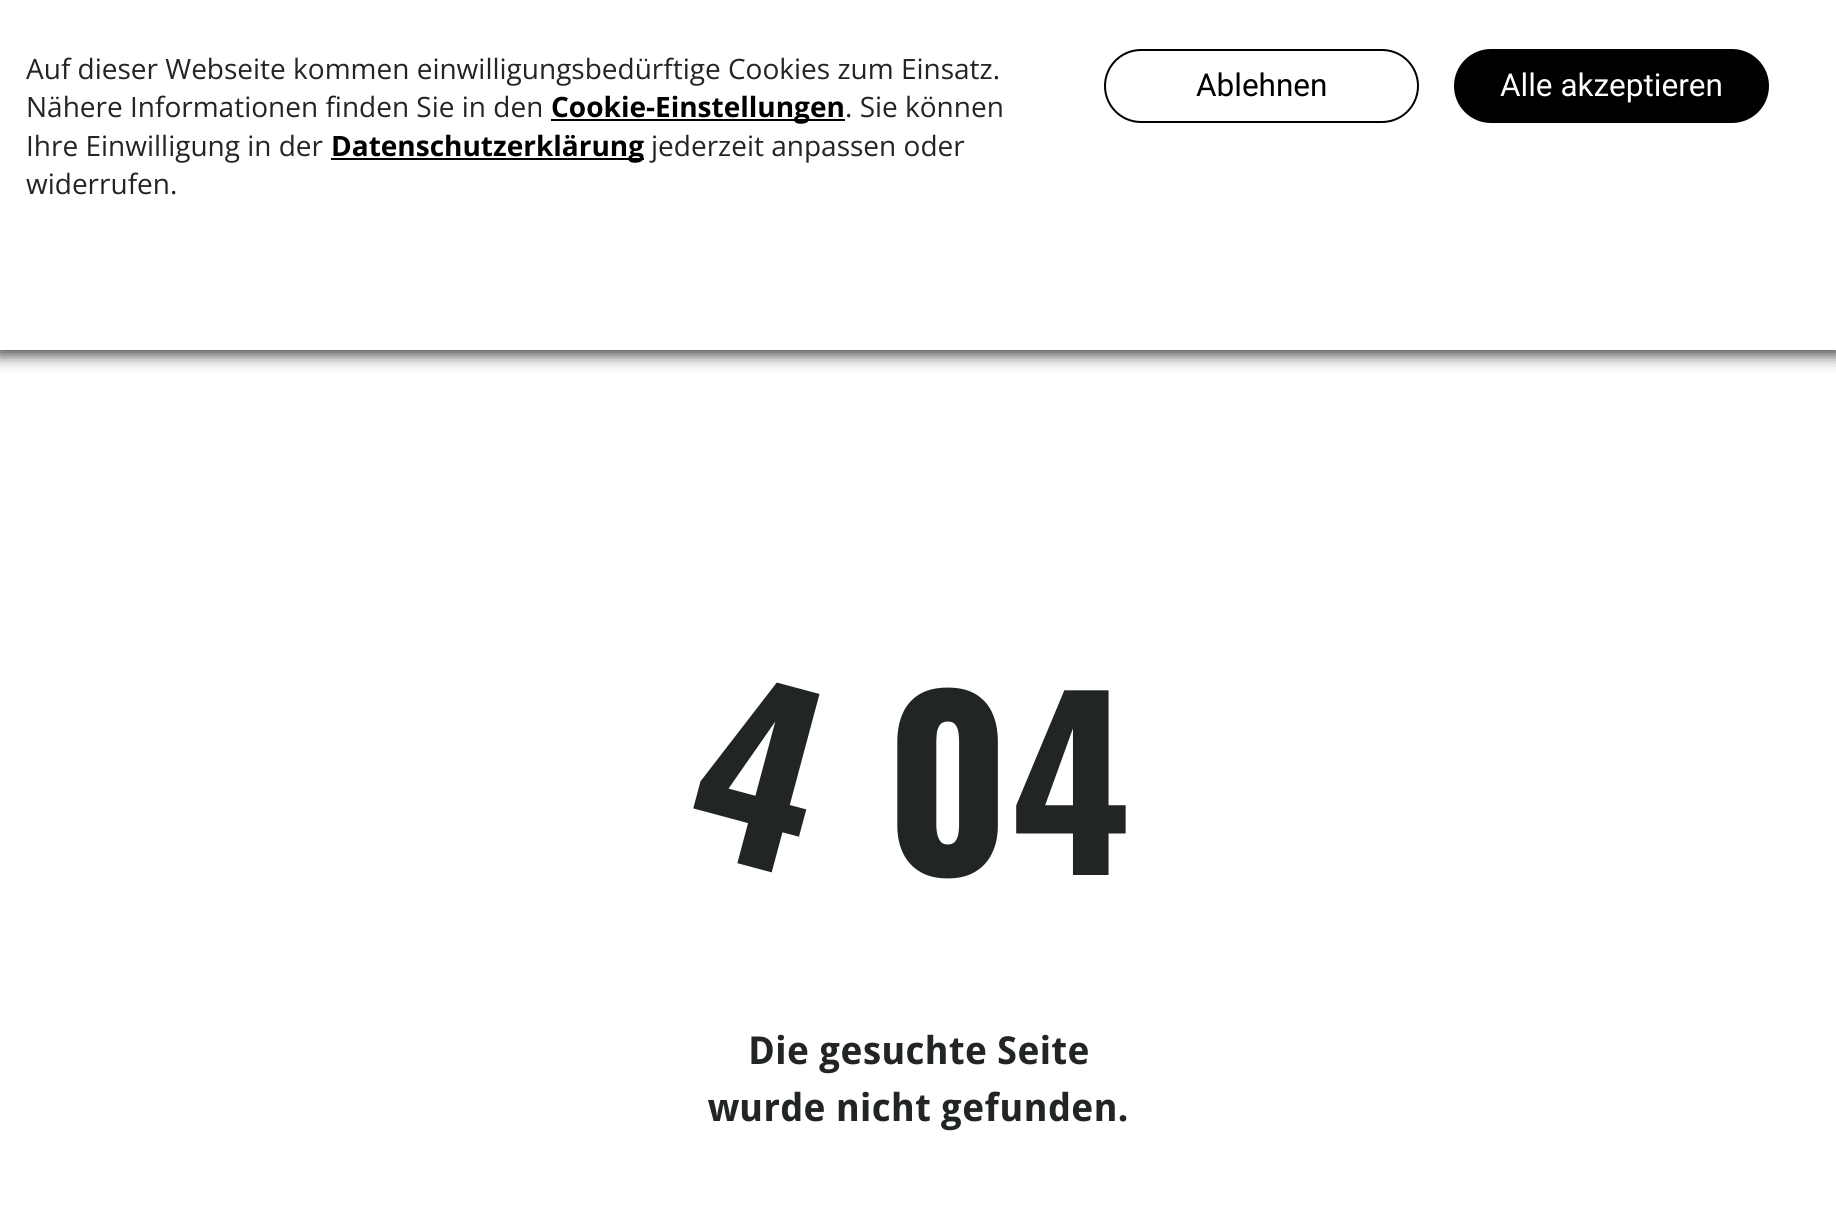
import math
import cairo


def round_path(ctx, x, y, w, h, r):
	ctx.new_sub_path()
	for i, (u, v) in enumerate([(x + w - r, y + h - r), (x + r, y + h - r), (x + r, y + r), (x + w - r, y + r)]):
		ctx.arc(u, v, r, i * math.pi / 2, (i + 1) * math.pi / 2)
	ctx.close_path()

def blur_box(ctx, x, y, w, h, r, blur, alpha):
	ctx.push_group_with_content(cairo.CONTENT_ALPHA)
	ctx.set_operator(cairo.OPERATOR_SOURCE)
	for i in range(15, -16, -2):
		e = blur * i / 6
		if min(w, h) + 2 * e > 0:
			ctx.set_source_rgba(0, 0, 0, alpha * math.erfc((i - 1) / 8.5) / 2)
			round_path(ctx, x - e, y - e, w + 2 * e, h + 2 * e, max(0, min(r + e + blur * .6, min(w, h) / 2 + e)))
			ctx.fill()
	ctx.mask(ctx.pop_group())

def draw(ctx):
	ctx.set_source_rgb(1, 1, 0.996)
	ctx.paint()
	ctx.set_source_rgb(0, 0, 0)
	blur_box(ctx, -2, 2, 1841, 353, 0, 8, 0.75)
	ctx.set_source_rgb(1, 1, 1)
	ctx.rectangle(0, 0, 1836, 350)
	ctx.fill()
	ctx.select_font_face('Open Sans')
	ctx.set_font_size(28)
	ctx.set_source_rgb(0.133, 0.145, 0.145)
	ctx.move_to(26, 79)
	ctx.show_text('Auf dieser Webseite kommen einwilligungsbedürftige Cookies zum Einsatz.')
	ctx.move_to(26, 117)
	ctx.show_text('Nähere Informationen finden Sie in den')
	ctx.set_source_rgb(0, 0, 0)
	ctx.rectangle(551, 119, 294, 2)
	ctx.fill()
	ctx.select_font_face('Open Sans', cairo.FONT_SLANT_NORMAL, cairo.FONT_WEIGHT_BOLD)
	ctx.move_to(551, 117)
	ctx.show_text('Cookie-Einstellungen')
	ctx.select_font_face('Open Sans')
	ctx.set_source_rgb(0.133, 0.145, 0.145)
	ctx.move_to(845, 117)
	ctx.show_text('. Sie können')
	ctx.move_to(26, 156)
	ctx.show_text('Ihre Einwilligung in der')
	ctx.set_source_rgb(0, 0, 0)
	ctx.rectangle(331, 158, 313, 2)
	ctx.fill()
	ctx.select_font_face('Open Sans', cairo.FONT_SLANT_NORMAL, cairo.FONT_WEIGHT_BOLD)
	ctx.move_to(331, 156)
	ctx.show_text('Datenschutzerklärung')
	ctx.select_font_face('Open Sans')
	ctx.set_source_rgb(0.133, 0.145, 0.145)
	ctx.move_to(651, 156)
	ctx.show_text('jederzeit anpassen oder')
	ctx.move_to(26, 194)
	ctx.show_text('widerrufen.')
	round_path(ctx, 1105, 50, 313, 72, 36)
	ctx.set_source_rgb(0, 0, 0)
	ctx.stroke()
	ctx.select_font_face('Roboto')
	ctx.set_font_size(31.5)
	ctx.move_to(1196, 96)
	ctx.show_text('Ablehnen')
	round_path(ctx, 1455, 50, 313, 72, 36)
	ctx.fill_preserve()
	ctx.stroke()
	ctx.set_source_rgb(1, 1, 1)
	ctx.move_to(1500, 96)
	ctx.show_text('Alle akzeptieren')
	ctx.select_font_face('Oswald', cairo.FONT_SLANT_NORMAL, cairo.FONT_WEIGHT_BOLD)
	ctx.set_font_size(228)
	ctx.set_source_rgb(0.133, 0.145, 0.145)
	ctx.save()
	ctx.translate(677, 847)
	ctx.rotate(15 * math.pi / 180)
	ctx.move_to(0, 0)
	ctx.show_text('4')
	ctx.restore()
	ctx.move_to(885, 875)
	ctx.show_text('04')
	ctx.select_font_face('Droid Sans', cairo.FONT_SLANT_NORMAL, cairo.FONT_WEIGHT_BOLD)
	ctx.set_font_size(38.5)
	ctx.move_to(748, 1064)
	ctx.show_text('Die gesuchte Seite')
	ctx.move_to(708, 1121)
	ctx.show_text('wurde nicht gefunden.')


surface = cairo.ImageSurface(cairo.FORMAT_RGB24, 1836, 1206)
ctx = cairo.Context(surface)
options = cairo.FontOptions()
options.set_hint_metrics(cairo.HINT_METRICS_OFF)
options.set_hint_style(cairo.HINT_STYLE_NONE)
ctx.set_font_options(options)
ctx.set_miter_limit(4)
draw(ctx)
surface.write_to_png('image.png')
